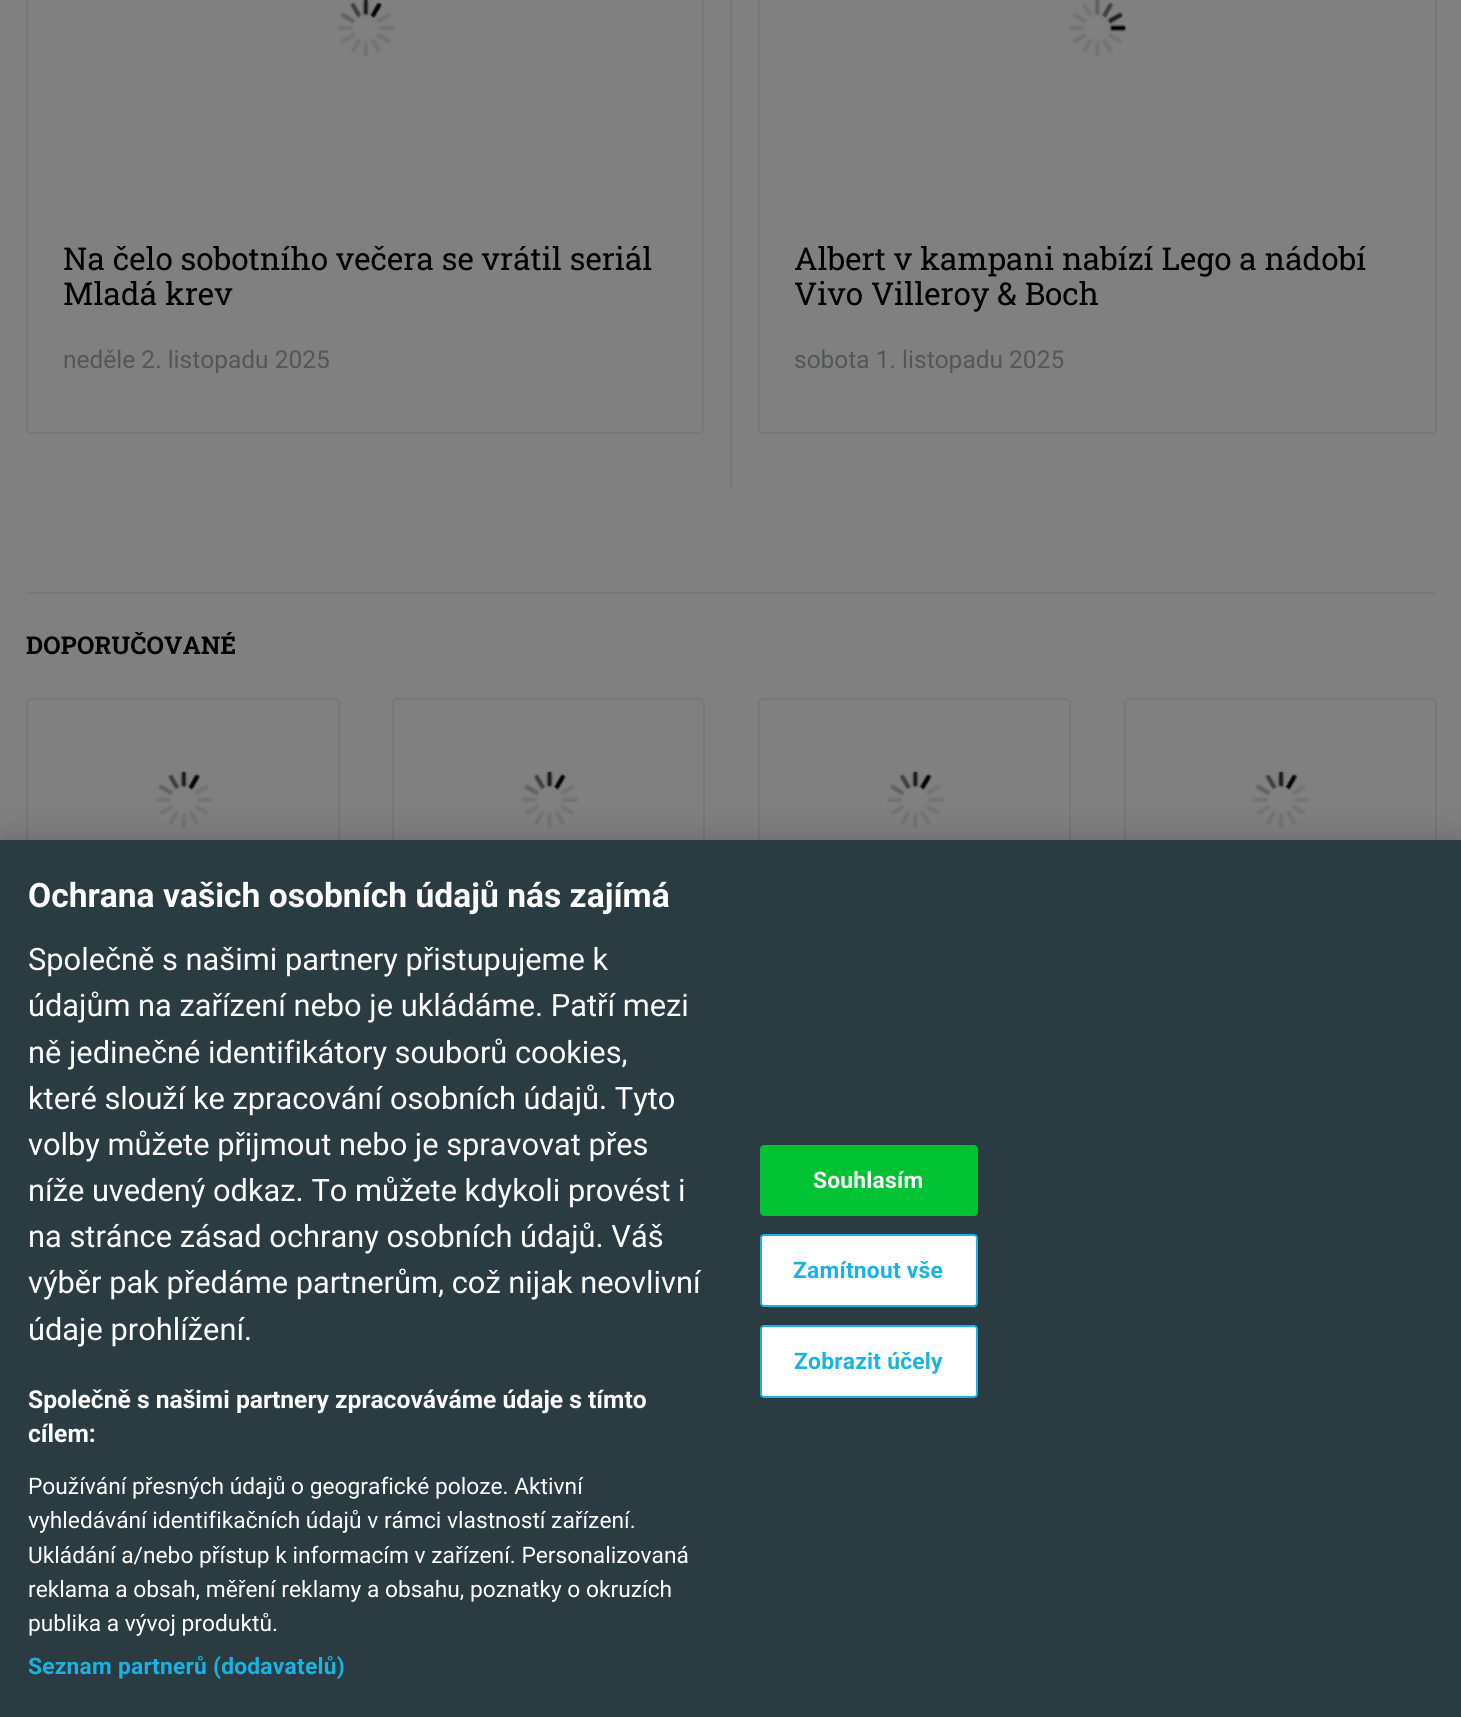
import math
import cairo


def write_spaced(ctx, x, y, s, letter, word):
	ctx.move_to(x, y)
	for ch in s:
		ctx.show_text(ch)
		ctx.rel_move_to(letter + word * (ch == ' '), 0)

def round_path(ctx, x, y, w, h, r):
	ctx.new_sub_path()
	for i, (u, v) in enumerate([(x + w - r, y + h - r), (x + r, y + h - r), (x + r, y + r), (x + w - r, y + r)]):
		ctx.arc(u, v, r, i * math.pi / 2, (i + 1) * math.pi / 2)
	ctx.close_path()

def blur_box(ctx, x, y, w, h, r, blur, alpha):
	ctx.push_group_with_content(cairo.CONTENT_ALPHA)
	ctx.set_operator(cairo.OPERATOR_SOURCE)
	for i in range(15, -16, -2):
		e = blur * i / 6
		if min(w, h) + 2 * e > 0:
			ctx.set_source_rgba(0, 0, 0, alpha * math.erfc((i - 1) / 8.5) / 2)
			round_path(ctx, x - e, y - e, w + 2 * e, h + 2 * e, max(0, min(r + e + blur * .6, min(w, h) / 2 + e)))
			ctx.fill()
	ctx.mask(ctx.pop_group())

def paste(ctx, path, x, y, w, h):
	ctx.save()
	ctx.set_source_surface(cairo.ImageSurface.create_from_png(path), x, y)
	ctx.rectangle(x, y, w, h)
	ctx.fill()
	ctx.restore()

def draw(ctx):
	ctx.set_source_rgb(0.502, 0.502, 0.502)
	ctx.paint()
	ctx.set_source_rgb(0.467, 0.467, 0.467)
	ctx.rectangle(730, 0, 2, 487)
	ctx.fill()
	round_path(ctx, 27, -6, 676, 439, 4)
	ctx.stroke()
	paste(ctx, 'media/1.png', 337, 0, 57, 56)
	ctx.select_font_face('Roboto Slab')
	ctx.set_font_size(31.5)
	ctx.set_source_rgb(0, 0, 0)
	ctx.move_to(63, 270)
	ctx.show_text('Na čelo sobotního večera se vrátil seriál')
	ctx.move_to(63, 305)
	ctx.show_text('Mladá krev')
	ctx.select_font_face('Roboto')
	ctx.set_font_size(24.5)
	ctx.set_source_rgb(0.329, 0.333, 0.337)
	ctx.move_to(63, 368)
	ctx.show_text('neděle 2. listopadu 2025')
	round_path(ctx, 759, -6, 677, 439, 4)
	ctx.set_source_rgb(0.467, 0.467, 0.467)
	ctx.stroke()
	paste(ctx, 'media/2.png', 1069, 0, 57, 57)
	ctx.select_font_face('Roboto Slab')
	ctx.set_font_size(31.5)
	ctx.set_source_rgb(0, 0, 0)
	ctx.move_to(794, 270)
	ctx.show_text('Albert v kampani nabízí Lego a nádobí')
	ctx.move_to(794, 305)
	ctx.show_text('Vivo Villeroy & Boch')
	ctx.select_font_face('Roboto')
	ctx.set_font_size(24.5)
	ctx.set_source_rgb(0.329, 0.333, 0.337)
	ctx.move_to(794, 368)
	ctx.show_text('sobota 1. listopadu 2025')
	ctx.set_source_rgb(0.467, 0.467, 0.467)
	ctx.rectangle(26, 592, 1409, 2)
	ctx.fill()
	ctx.select_font_face('Roboto Slab', cairo.FONT_SLANT_NORMAL, cairo.FONT_WEIGHT_BOLD)
	ctx.set_source_rgb(0, 0, 0)
	write_spaced(ctx, 26, 654, 'DOPORUČOVANÉ', 0.25, 0)
	round_path(ctx, 27, 699, 312, 476, 4)
	ctx.set_source_rgb(0.467, 0.467, 0.467)
	ctx.stroke()
	paste(ctx, 'media/3.png', 155, 771, 57, 57)
	round_path(ctx, 393, 699, 311, 476, 4)
	ctx.stroke()
	paste(ctx, 'media/4.png', 521, 771, 57, 57)
	round_path(ctx, 759, 699, 311, 476, 4)
	ctx.stroke()
	paste(ctx, 'media/5.png', 887, 771, 57, 57)
	round_path(ctx, 1125, 699, 311, 476, 4)
	ctx.stroke()
	paste(ctx, 'media/6.png', 1253, 771, 56, 57)
	ctx.set_source_rgb(0, 0, 0)
	blur_box(ctx, 0, 840, 1461, 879, 0, 16, 0.2)
	ctx.set_source_rgb(0.165, 0.231, 0.259)
	ctx.rectangle(0, 840, 1461, 877)
	ctx.fill()
	ctx.select_font_face('Roboto', cairo.FONT_SLANT_NORMAL, cairo.FONT_WEIGHT_BOLD)
	ctx.set_font_size(33.6)
	ctx.set_source_rgb(1, 1, 1)
	ctx.move_to(28, 907)
	ctx.show_text('Ochrana vašich osobních údajů nás zajímá')
	ctx.select_font_face('Roboto')
	ctx.set_font_size(30.8)
	for x, y, s in [
		(28, 970, 'Společně s našimi partnery přistupujeme k'),
		(28, 1016, 'údajům na zařízení nebo je ukládáme. Patří mezi'),
		(28, 1063, 'ně jedinečné identifikátory souborů cookies,'),
		(28, 1109, 'které slouží ke zpracování osobních údajů. Tyto'),
		(28, 1155, 'volby můžete přijmout nebo je spravovat přes'),
		(28, 1201, 'níže uvedený odkaz. To můžete kdykoli provést i'),
		(28, 1247, 'na stránce zásad ochrany osobních údajů. Váš'),
		(28, 1293, 'výběr pak předáme partnerům, což nijak neovlivní'),
		(28, 1340, 'údaje prohlížení.'),
	]:
		ctx.move_to(x, y)
		ctx.show_text(s)
	ctx.select_font_face('Roboto', cairo.FONT_SLANT_NORMAL, cairo.FONT_WEIGHT_BOLD)
	ctx.set_font_size(24.65)
	ctx.move_to(28, 1408)
	ctx.show_text('Společně s našimi partnery zpracováváme údaje s tímto')
	ctx.move_to(28, 1442)
	ctx.show_text('cílem:')
	ctx.select_font_face('Roboto')
	ctx.set_font_size(22.75)
	for x, y, s in [
		(28, 1494, 'Používání přesných údajů o geografické poloze. Aktivní'),
		(28, 1528, 'vyhledávání identifikačních údajů v rámci vlastností zařízení.'),
		(28, 1563, 'Ukládání a/nebo přístup k informacím v zařízení. Personalizovaná'),
		(28, 1597, 'reklama a obsah, měření reklamy a obsahu, poznatky o okruzích'),
		(28, 1631, 'publika a vývoj produktů.'),
	]:
		ctx.move_to(x, y)
		ctx.show_text(s)
	ctx.select_font_face('Roboto', cairo.FONT_SLANT_NORMAL, cairo.FONT_WEIGHT_BOLD)
	ctx.set_source_rgb(0.09, 0.702, 0.89)
	write_spaced(ctx, 28, 1674, 'Seznam partnerů (dodavatelů)', 0.25, 0)
	ctx.set_source_rgb(0, 0.761, 0.196)
	round_path(ctx, 761, 1146, 216, 69, 3)
	ctx.fill_preserve()
	ctx.stroke()
	ctx.set_source_rgb(1, 1, 1)
	write_spaced(ctx, 813, 1188, 'Souhlasím', 0.25, 0)
	round_path(ctx, 761, 1235, 216, 71, 3)
	ctx.fill_preserve()
	ctx.set_source_rgb(0.09, 0.702, 0.89)
	ctx.stroke()
	write_spaced(ctx, 793, 1278, 'Zamítnout vše', 0.25, 0)
	ctx.set_source_rgb(1, 1, 1)
	round_path(ctx, 761, 1326, 216, 71, 3)
	ctx.fill_preserve()
	ctx.set_source_rgb(0.09, 0.702, 0.89)
	ctx.stroke()
	write_spaced(ctx, 794, 1369, 'Zobrazit účely', 0.25, 0)


surface = cairo.ImageSurface(cairo.FORMAT_RGB24, 1461, 1717)
ctx = cairo.Context(surface)
options = cairo.FontOptions()
options.set_hint_metrics(cairo.HINT_METRICS_OFF)
options.set_hint_style(cairo.HINT_STYLE_NONE)
ctx.set_font_options(options)
ctx.set_miter_limit(4)
draw(ctx)
surface.write_to_png('image.png')
